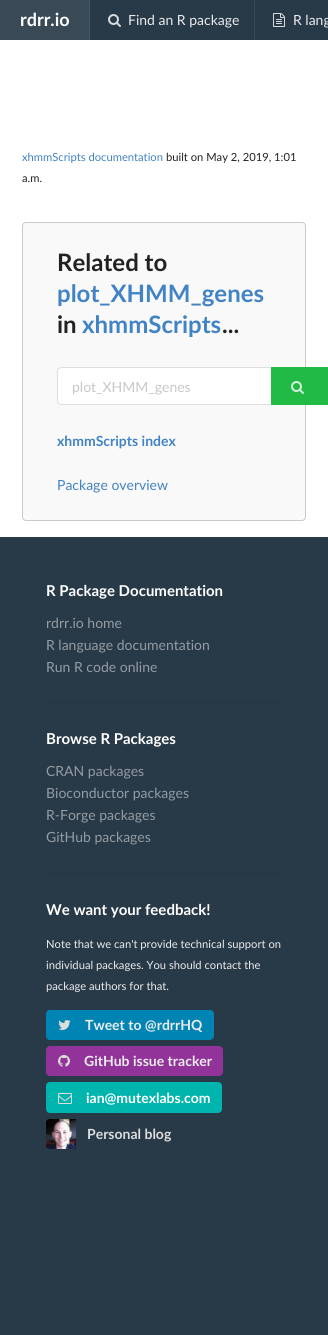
import math
import cairo


def round_path(ctx, x, y, w, h, r):
	ctx.new_sub_path()
	for i, (u, v) in enumerate([(x + w - r, y + h - r), (x + r, y + h - r), (x + r, y + r), (x + w - r, y + r)]):
		ctx.arc(u, v, r, i * math.pi / 2, (i + 1) * math.pi / 2)
	ctx.close_path()

def paste(ctx, path, x, y, w, h):
	ctx.save()
	ctx.set_source_surface(cairo.ImageSurface.create_from_png(path), x, y)
	ctx.rectangle(x, y, w, h)
	ctx.fill()
	ctx.restore()

def draw(ctx):
	ctx.set_source_rgb(1, 1, 1)
	ctx.paint()
	ctx.set_source_rgb(0.157, 0.224, 0.278)
	ctx.rectangle(90, 0, 238, 40)
	ctx.fill()
	ctx.set_source_rgb(0.224, 0.286, 0.337)
	ctx.rectangle(0, 0, 89, 40)
	ctx.fill()
	ctx.select_font_face('Lato', cairo.FONT_SLANT_NORMAL, cairo.FONT_WEIGHT_BOLD)
	ctx.set_font_size(18)
	ctx.set_source_rgb(1, 1, 1)
	ctx.move_to(20, 26)
	ctx.show_text('rdrr.io')
	ctx.set_source_rgb(0.286, 0.345, 0.392)
	ctx.rectangle(89, 0, 1, 40)
	ctx.fill()
	paste(ctx, 'media/1.png', 108, 14, 13, 13)
	ctx.select_font_face('Lato')
	ctx.set_font_size(14)
	ctx.set_source_rgb(0.918, 0.922, 0.929)
	ctx.move_to(128, 25)
	ctx.show_text('Find an R package')
	ctx.set_source_rgb(0.224, 0.286, 0.337)
	ctx.rectangle(254, 0, 1, 40)
	ctx.fill()
	paste(ctx, 'media/2.png', 273, 13, 12, 14)
	ctx.set_source_rgb(0.918, 0.922, 0.929)
	ctx.move_to(293, 25)
	ctx.show_text('R lang')
	ctx.set_font_size(11.2)
	ctx.set_source_rgb(0.255, 0.514, 0.769)
	ctx.move_to(22, 161)
	ctx.show_text('xhmmScripts documentation')
	ctx.set_source_rgb(0.129, 0.129, 0.129)
	ctx.move_to(166, 161)
	ctx.show_text('built on May 2, 2019, 1:01')
	ctx.move_to(22, 182)
	ctx.show_text('a.m.')
	ctx.set_source_rgb(0.973, 0.973, 0.976)
	round_path(ctx, 22.5, 222.5, 283, 298, 3.5)
	ctx.fill_preserve()
	ctx.set_source_rgb(0.788, 0.788, 0.796)
	ctx.set_line_width(1)
	ctx.stroke()
	ctx.select_font_face('Lato', cairo.FONT_SLANT_NORMAL, cairo.FONT_WEIGHT_BOLD)
	ctx.set_font_size(24)
	ctx.set_source_rgb(0.129, 0.129, 0.129)
	ctx.move_to(57, 271)
	ctx.show_text('Related to')
	ctx.set_source_rgb(0.255, 0.514, 0.769)
	ctx.move_to(57, 302)
	ctx.show_text('plot_XHMM_genes')
	ctx.set_source_rgb(0.129, 0.129, 0.129)
	ctx.move_to(57, 333)
	ctx.show_text('in')
	ctx.set_source_rgb(0.255, 0.514, 0.769)
	ctx.move_to(82, 333)
	ctx.show_text('xhmmScripts')
	ctx.set_source_rgb(0.129, 0.129, 0.129)
	ctx.move_to(222, 333)
	ctx.show_text('...')
	ctx.set_source_rgb(1, 1, 1)
	ctx.new_path()
	ctx.move_to(61, 367)
	ctx.line_to(271, 367)
	ctx.line_to(271, 405)
	ctx.line_to(61, 405)
	ctx.curve_to(59, 405, 57, 403, 57, 401)
	ctx.line_to(57, 371)
	ctx.curve_to(57, 369, 59, 367, 61, 367)
	ctx.close_path()
	ctx.fill()
	ctx.set_source_rgb(0.871, 0.871, 0.871)
	ctx.new_path()
	ctx.move_to(61, 367)
	ctx.line_to(58, 368)
	ctx.line_to(59, 369)
	ctx.line_to(61, 368)
	ctx.line_to(270, 368)
	ctx.line_to(271, 367)
	ctx.close_path()
	ctx.fill()
	ctx.new_path()
	ctx.move_to(271, 405)
	ctx.line_to(270, 404)
	ctx.line_to(61, 404)
	ctx.line_to(59, 403)
	ctx.line_to(58, 404)
	ctx.line_to(61, 405)
	ctx.close_path()
	ctx.fill()
	ctx.set_source_rgba(0.133, 0.141, 0.149, 0.15)
	ctx.new_path()
	ctx.move_to(57, 371)
	ctx.line_to(57, 401)
	ctx.curve_to(57, 402, 57.5, 403, 58, 404)
	ctx.line_to(59, 403)
	ctx.curve_to(58, 403, 58, 402, 58, 401)
	ctx.line_to(58, 371)
	ctx.curve_to(58, 370, 58, 369, 59, 369)
	ctx.line_to(58, 368)
	ctx.curve_to(57.5, 369, 57, 370, 57, 371)
	ctx.close_path()
	ctx.fill()
	ctx.select_font_face('Lato')
	ctx.set_font_size(14)
	ctx.set_source_rgb(0.78, 0.78, 0.78)
	ctx.move_to(72, 392)
	ctx.show_text('plot_XHMM_genes')
	ctx.set_source_rgb(0.129, 0.729, 0.271)
	ctx.rectangle(271, 367, 57, 38)
	ctx.fill()
	paste(ctx, 'media/3.png', 291, 381, 13, 13)
	ctx.select_font_face('Lato', cairo.FONT_SLANT_NORMAL, cairo.FONT_WEIGHT_BOLD)
	ctx.set_source_rgb(0.255, 0.514, 0.769)
	ctx.move_to(57, 446)
	ctx.show_text('xhmmScripts index')
	ctx.select_font_face('Lato')
	ctx.move_to(57, 490)
	ctx.show_text('Package overview')
	ctx.set_source_rgb(0.157, 0.224, 0.278)
	ctx.rectangle(0, 537, 328, 798)
	ctx.fill()
	ctx.select_font_face('Lato', cairo.FONT_SLANT_NORMAL, cairo.FONT_WEIGHT_BOLD)
	ctx.set_font_size(15)
	ctx.set_source_rgb(1, 1, 1)
	ctx.move_to(46, 596)
	ctx.show_text('R Package Documentation')
	ctx.select_font_face('Lato')
	ctx.set_font_size(14)
	ctx.set_source_rgb(0.58, 0.612, 0.639)
	for x, y, s in [
		(46, 628, 'rdrr.io home'),
		(46, 650, 'R language documentation'),
		(46, 672, 'Run R code online'),
	]:
		ctx.move_to(x, y)
		ctx.show_text(s)
	ctx.set_source_rgb(0.153, 0.212, 0.259)
	ctx.rectangle(46, 703, 236, 1)
	ctx.fill()
	ctx.select_font_face('Lato', cairo.FONT_SLANT_NORMAL, cairo.FONT_WEIGHT_BOLD)
	ctx.set_font_size(15)
	ctx.set_source_rgb(1, 1, 1)
	ctx.move_to(46, 744)
	ctx.show_text('Browse R Packages')
	ctx.select_font_face('Lato')
	ctx.set_font_size(14)
	ctx.set_source_rgb(0.58, 0.612, 0.639)
	for x, y, s in [
		(46, 776, 'CRAN packages'),
		(46, 798, 'Bioconductor packages'),
		(46, 820, 'R-Forge packages'),
		(46, 842, 'GitHub packages'),
	]:
		ctx.move_to(x, y)
		ctx.show_text(s)
	ctx.set_source_rgb(0.153, 0.212, 0.259)
	ctx.rectangle(46, 873, 236, 1)
	ctx.fill()
	ctx.select_font_face('Lato', cairo.FONT_SLANT_NORMAL, cairo.FONT_WEIGHT_BOLD)
	ctx.set_font_size(15)
	ctx.set_source_rgb(1, 1, 1)
	ctx.move_to(46, 915)
	ctx.show_text('We want your feedback!')
	ctx.select_font_face('Lato')
	ctx.set_font_size(11.2)
	ctx.set_source_rgb(0.918, 0.922, 0.929)
	for x, y, s in [
		(46, 948, 'Note that we can\'t provide technical support on'),
		(46, 969, 'individual packages. You should contact the'),
		(46, 990, 'package authors for that.'),
	]:
		ctx.move_to(x, y)
		ctx.show_text(s)
	ctx.set_source_rgb(0, 0.518, 0.706)
	round_path(ctx, 46, 1010, 168, 30, 4)
	ctx.fill()
	paste(ctx, 'media/4.png', 58, 1020, 13, 10)
	ctx.select_font_face('Lato', cairo.FONT_SLANT_NORMAL, cairo.FONT_WEIGHT_BOLD)
	ctx.set_font_size(14)
	ctx.set_source_rgb(0.918, 0.922, 0.929)
	ctx.move_to(85, 1030)
	ctx.show_text('Tweet to @rdrrHQ')
	ctx.set_source_rgb(0.569, 0.2, 0.6)
	round_path(ctx, 46, 1046, 177, 30, 4)
	ctx.fill()
	paste(ctx, 'media/5.png', 58, 1055, 12, 12)
	ctx.set_source_rgb(0.918, 0.922, 0.929)
	ctx.move_to(84, 1066)
	ctx.show_text('GitHub issue tracker')
	ctx.set_source_rgb(0, 0.71, 0.678)
	round_path(ctx, 46, 1082, 176, 31, 4)
	ctx.fill()
	paste(ctx, 'media/6.png', 58, 1093, 14, 11)
	ctx.set_source_rgb(1, 1, 1)
	ctx.move_to(86, 1103)
	ctx.show_text('ian@mutexlabs.com')
	paste(ctx, 'media/7.png', 46, 1119, 30, 30)
	ctx.set_source_rgb(0.867, 0.867, 0.867)
	ctx.move_to(87, 1139)
	ctx.show_text('Personal blog')


surface = cairo.ImageSurface(cairo.FORMAT_RGB24, 328, 1335)
ctx = cairo.Context(surface)
options = cairo.FontOptions()
options.set_hint_metrics(cairo.HINT_METRICS_OFF)
options.set_hint_style(cairo.HINT_STYLE_NONE)
ctx.set_font_options(options)
ctx.set_miter_limit(4)
draw(ctx)
surface.write_to_png('image.png')
